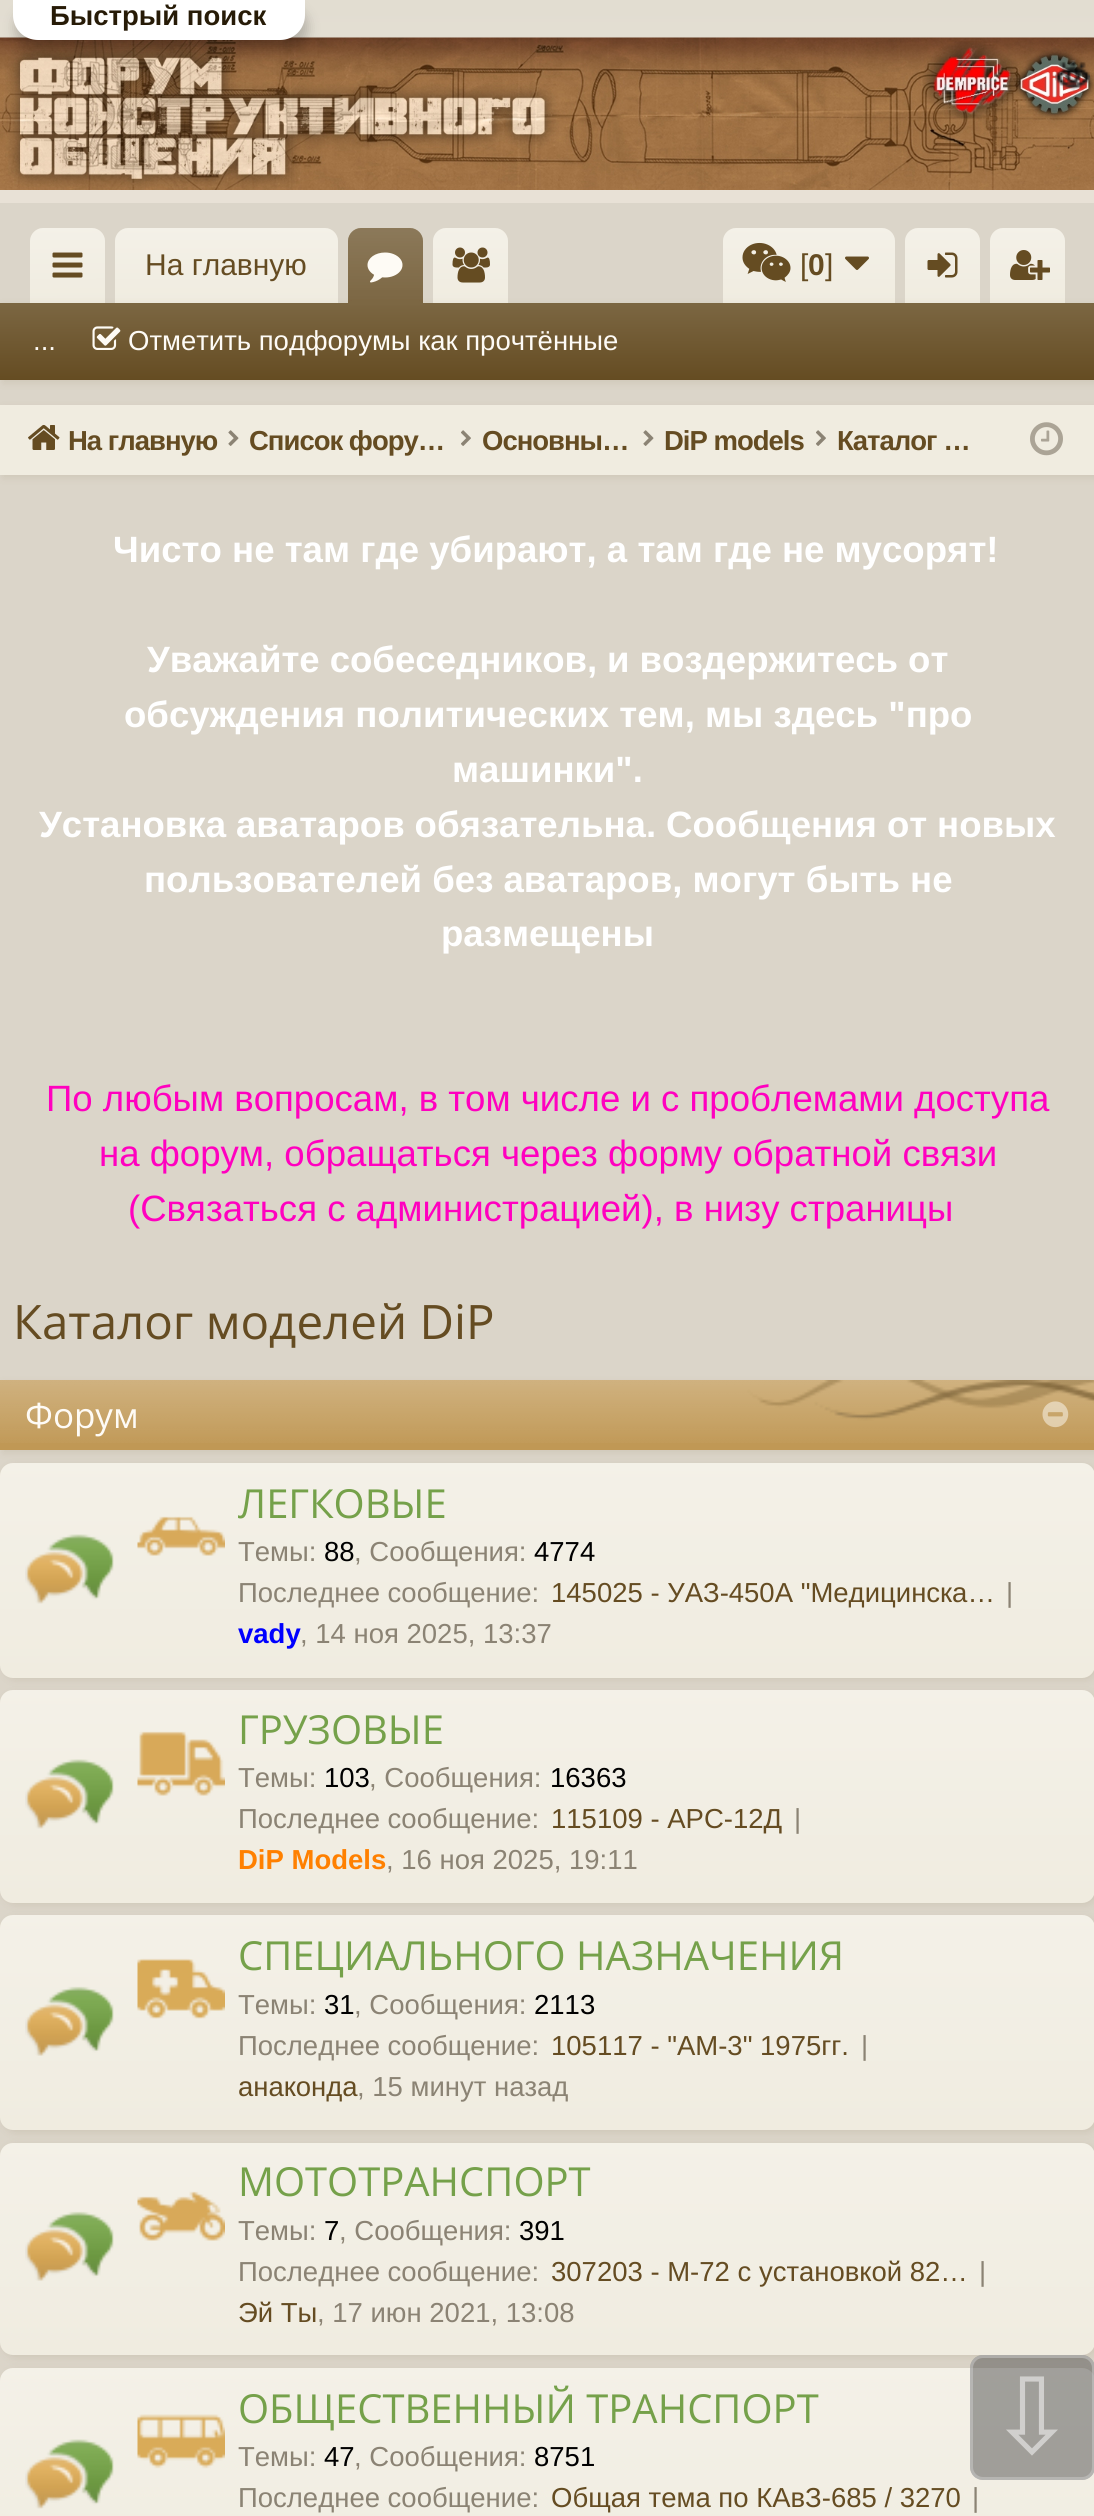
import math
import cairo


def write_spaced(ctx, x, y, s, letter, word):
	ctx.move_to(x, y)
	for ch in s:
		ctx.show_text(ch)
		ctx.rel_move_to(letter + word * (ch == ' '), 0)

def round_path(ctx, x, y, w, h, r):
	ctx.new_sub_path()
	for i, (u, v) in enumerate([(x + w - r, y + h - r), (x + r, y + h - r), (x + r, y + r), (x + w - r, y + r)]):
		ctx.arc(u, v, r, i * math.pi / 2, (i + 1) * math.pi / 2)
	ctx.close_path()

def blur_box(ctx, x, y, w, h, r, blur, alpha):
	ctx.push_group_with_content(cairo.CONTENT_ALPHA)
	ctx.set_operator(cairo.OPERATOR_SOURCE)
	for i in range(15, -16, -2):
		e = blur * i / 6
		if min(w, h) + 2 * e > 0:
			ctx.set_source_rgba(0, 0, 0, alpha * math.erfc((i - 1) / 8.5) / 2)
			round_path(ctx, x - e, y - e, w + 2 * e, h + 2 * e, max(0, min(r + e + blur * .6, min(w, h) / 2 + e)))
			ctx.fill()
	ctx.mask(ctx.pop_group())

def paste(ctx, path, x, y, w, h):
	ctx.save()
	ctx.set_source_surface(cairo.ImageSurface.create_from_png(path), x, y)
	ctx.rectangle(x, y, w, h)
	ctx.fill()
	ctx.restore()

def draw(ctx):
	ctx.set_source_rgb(1, 1, 1)
	ctx.paint()
	gradient = cairo.LinearGradient(547, 0, 548, 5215)
	gradient.add_color_stop_rgba(0, 0.886, 0.867, 0.82, 1)
	gradient.add_color_stop_rgba(0.1, 0.949, 0.906, 0.871, 1)
	gradient.add_color_stop_rgba(1, 0.976, 0.922, 0.894, 1)
	ctx.set_source(gradient)
	ctx.rectangle(0, 0, 1094, 203)
	ctx.fill()
	ctx.set_source_rgb(0.859, 0.835, 0.788)
	ctx.rectangle(0, 203, 1094, 2178)
	ctx.fill()
	paste(ctx, 'media/26.png', 0, 37, 1094, 153)
	ctx.set_source_rgb(0, 0, 0)
	blur_box(ctx, 15, 8, 293, 40, 25, 6, 0.2)
	ctx.set_source_rgb(1, 1, 1)
	ctx.new_path()
	ctx.move_to(13, 0)
	ctx.line_to(305, 0)
	ctx.line_to(305, 15)
	ctx.curve_to(305, 29, 294, 40, 280, 40)
	ctx.line_to(38, 40)
	ctx.curve_to(24, 40, 13, 29, 13, 15)
	ctx.close_path()
	ctx.fill()
	ctx.select_font_face('Liberation Sans', cairo.FONT_SLANT_NORMAL, cairo.FONT_WEIGHT_BOLD)
	ctx.set_font_size(27.5)
	ctx.set_source_rgb(0.153, 0.106, 0.031)
	ctx.move_to(50, 25)
	ctx.show_text('Быстрый поиск')
	paste(ctx, 'media/1.png', 1055, 60, 35, 31)
	ctx.set_source_rgb(0.941, 0.925, 0.878)
	ctx.new_path()
	ctx.move_to(43, 228)
	ctx.line_to(92, 228)
	ctx.curve_to(99, 228, 105, 234, 105, 241)
	ctx.line_to(105, 303)
	ctx.line_to(30, 303)
	ctx.line_to(30, 241)
	ctx.curve_to(30, 234, 36, 228, 43, 228)
	ctx.close_path()
	ctx.fill()
	gradient = cairo.LinearGradient(67, 228, 68, 303)
	gradient.add_color_stop_rgba(0, 1, 1, 1, 0.25)
	gradient.add_color_stop_rgba(1, 1, 1, 1, 0)
	ctx.set_source(gradient)
	ctx.new_path()
	ctx.move_to(43, 228)
	ctx.line_to(92, 228)
	ctx.curve_to(99, 228, 105, 234, 105, 241)
	ctx.line_to(105, 303)
	ctx.line_to(30, 303)
	ctx.line_to(30, 241)
	ctx.curve_to(30, 234, 36, 228, 43, 228)
	ctx.close_path()
	ctx.fill()
	paste(ctx, 'media/2.png', 52, 252, 31, 26)
	ctx.set_source_rgb(0.941, 0.925, 0.878)
	ctx.new_path()
	ctx.move_to(128, 228)
	ctx.line_to(325, 228)
	ctx.curve_to(332, 228, 338, 234, 338, 241)
	ctx.line_to(338, 303)
	ctx.line_to(115, 303)
	ctx.line_to(115, 241)
	ctx.curve_to(115, 234, 121, 228, 128, 228)
	ctx.close_path()
	ctx.fill()
	gradient = cairo.LinearGradient(226, 228, 226, 303)
	gradient.add_color_stop_rgba(0, 1, 1, 1, 0.25)
	gradient.add_color_stop_rgba(1, 1, 1, 1, 0)
	ctx.set_source(gradient)
	ctx.new_path()
	ctx.move_to(128, 228)
	ctx.line_to(325, 228)
	ctx.curve_to(332, 228, 338, 234, 338, 241)
	ctx.line_to(338, 303)
	ctx.line_to(115, 303)
	ctx.line_to(115, 241)
	ctx.curve_to(115, 234, 121, 228, 128, 228)
	ctx.close_path()
	ctx.fill()
	ctx.select_font_face('Liberation Sans')
	ctx.set_font_size(30)
	ctx.set_source_rgb(0.396, 0.298, 0.133)
	ctx.move_to(145, 275)
	ctx.show_text('На главную')
	ctx.new_path()
	ctx.move_to(361, 228)
	ctx.line_to(410, 228)
	ctx.curve_to(417, 228, 423, 234, 423, 241)
	ctx.line_to(423, 303)
	ctx.line_to(348, 303)
	ctx.line_to(348, 241)
	ctx.curve_to(348, 234, 354, 228, 361, 228)
	ctx.close_path()
	ctx.fill()
	gradient = cairo.LinearGradient(385, 228, 385, 303)
	gradient.add_color_stop_rgba(0, 1, 1, 1, 0.25)
	gradient.add_color_stop_rgba(1, 1, 1, 1, 0.15)
	ctx.set_source(gradient)
	ctx.new_path()
	ctx.move_to(361, 228)
	ctx.line_to(410, 228)
	ctx.curve_to(417, 228, 423, 234, 423, 241)
	ctx.line_to(423, 303)
	ctx.line_to(348, 303)
	ctx.line_to(348, 241)
	ctx.curve_to(348, 234, 354, 228, 361, 228)
	ctx.close_path()
	ctx.fill()
	paste(ctx, 'media/3.png', 367, 252, 36, 31)
	ctx.set_source_rgb(0.941, 0.925, 0.878)
	ctx.new_path()
	ctx.move_to(446, 228)
	ctx.line_to(495, 228)
	ctx.curve_to(502, 228, 508, 234, 508, 241)
	ctx.line_to(508, 303)
	ctx.line_to(433, 303)
	ctx.line_to(433, 241)
	ctx.curve_to(433, 234, 439, 228, 446, 228)
	ctx.close_path()
	ctx.fill()
	gradient = cairo.LinearGradient(470, 228, 470, 303)
	gradient.add_color_stop_rgba(0, 1, 1, 1, 0.25)
	gradient.add_color_stop_rgba(1, 1, 1, 1, 0)
	ctx.set_source(gradient)
	ctx.new_path()
	ctx.move_to(446, 228)
	ctx.line_to(495, 228)
	ctx.curve_to(502, 228, 508, 234, 508, 241)
	ctx.line_to(508, 303)
	ctx.line_to(433, 303)
	ctx.line_to(433, 241)
	ctx.curve_to(433, 234, 439, 228, 446, 228)
	ctx.close_path()
	ctx.fill()
	ctx.set_source_rgb(0.941, 0.925, 0.878)
	ctx.new_path()
	ctx.move_to(736, 228)
	ctx.line_to(882, 228)
	ctx.curve_to(889, 228, 895, 234, 895, 241)
	ctx.line_to(895, 303)
	ctx.line_to(723, 303)
	ctx.line_to(723, 241)
	ctx.curve_to(723, 234, 729, 228, 736, 228)
	ctx.close_path()
	ctx.fill()
	gradient = cairo.LinearGradient(809, 228, 809, 303)
	gradient.add_color_stop_rgba(0, 1, 1, 1, 0.25)
	gradient.add_color_stop_rgba(1, 1, 1, 1, 0)
	ctx.set_source(gradient)
	ctx.new_path()
	ctx.move_to(736, 228)
	ctx.line_to(882, 228)
	ctx.curve_to(889, 228, 895, 234, 895, 241)
	ctx.line_to(895, 303)
	ctx.line_to(723, 303)
	ctx.line_to(723, 241)
	ctx.curve_to(723, 234, 729, 228, 736, 228)
	ctx.close_path()
	ctx.fill()
	ctx.set_source_rgb(0.941, 0.925, 0.878)
	ctx.new_path()
	ctx.move_to(918, 228)
	ctx.line_to(967, 228)
	ctx.curve_to(974, 228, 980, 234, 980, 241)
	ctx.line_to(980, 303)
	ctx.line_to(905, 303)
	ctx.line_to(905, 241)
	ctx.curve_to(905, 234, 911, 228, 918, 228)
	ctx.close_path()
	ctx.fill()
	gradient = cairo.LinearGradient(943, 228, 943, 303)
	gradient.add_color_stop_rgba(0, 1, 1, 1, 0.25)
	gradient.add_color_stop_rgba(1, 1, 1, 1, 0)
	ctx.set_source(gradient)
	ctx.new_path()
	ctx.move_to(918, 228)
	ctx.line_to(967, 228)
	ctx.curve_to(974, 228, 980, 234, 980, 241)
	ctx.line_to(980, 303)
	ctx.line_to(905, 303)
	ctx.line_to(905, 241)
	ctx.curve_to(905, 234, 911, 228, 918, 228)
	ctx.close_path()
	ctx.fill()
	ctx.set_source_rgb(0.941, 0.925, 0.878)
	ctx.new_path()
	ctx.move_to(1003, 228)
	ctx.line_to(1052, 228)
	ctx.curve_to(1059, 228, 1065, 234, 1065, 241)
	ctx.line_to(1065, 303)
	ctx.line_to(990, 303)
	ctx.line_to(990, 241)
	ctx.curve_to(990, 234, 996, 228, 1003, 228)
	ctx.close_path()
	ctx.fill()
	gradient = cairo.LinearGradient(1028, 228, 1028, 303)
	gradient.add_color_stop_rgba(0, 1, 1, 1, 0.25)
	gradient.add_color_stop_rgba(1, 1, 1, 1, 0)
	ctx.set_source(gradient)
	ctx.new_path()
	ctx.move_to(1003, 228)
	ctx.line_to(1052, 228)
	ctx.curve_to(1059, 228, 1065, 234, 1065, 241)
	ctx.line_to(1065, 303)
	ctx.line_to(990, 303)
	ctx.line_to(990, 241)
	ctx.curve_to(990, 234, 996, 228, 1003, 228)
	ctx.close_path()
	ctx.fill()
	ctx.set_source_rgb(0.396, 0.298, 0.133)
	blur_box(ctx, 3, 305, 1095, 78, 0, 4, 0.1)
	gradient = cairo.LinearGradient(548, 302, 548, 380)
	gradient.add_color_stop_rgba(0, 0.486, 0.404, 0.263, 1)
	gradient.add_color_stop_rgba(1, 0.396, 0.298, 0.133, 1)
	ctx.set_source(gradient)
	ctx.rectangle(0, 303, 1094, 77)
	ctx.fill()
	ctx.set_source_rgb(0.396, 0.298, 0.133)
	ctx.new_path()
	ctx.move_to(353, 300)
	ctx.line_to(418, 300)
	ctx.curve_to(421, 300, 423, 302, 423, 305)
	ctx.line_to(348, 305)
	ctx.curve_to(348, 302, 350, 300, 353, 300)
	ctx.close_path()
	ctx.fill()
	ctx.set_source_rgba(1, 1, 1, 0.15)
	ctx.new_path()
	ctx.move_to(353, 300)
	ctx.line_to(418, 300)
	ctx.curve_to(421, 300, 423, 302, 423, 305)
	ctx.line_to(348, 305)
	ctx.curve_to(348, 302, 350, 300, 353, 300)
	ctx.close_path()
	ctx.fill()
	paste(ctx, 'media/4.png', 452, 247, 38, 36)
	paste(ctx, 'media/5.png', 742, 242, 49, 40)
	ctx.set_source_rgb(0.396, 0.298, 0.133)
	ctx.move_to(800, 275)
	ctx.show_text('[')
	ctx.select_font_face('Liberation Sans', cairo.FONT_SLANT_NORMAL, cairo.FONT_WEIGHT_BOLD)
	ctx.move_to(808, 275)
	ctx.show_text('0')
	ctx.select_font_face('Liberation Sans')
	ctx.move_to(825, 275)
	ctx.show_text(']')
	paste(ctx, 'media/6.png', 845, 256, 24, 14)
	paste(ctx, 'media/7.png', 927, 252, 31, 26)
	paste(ctx, 'media/8.png', 1010, 250, 40, 30)
	ctx.set_font_size(27.5)
	ctx.set_source_rgb(0.996, 0.984, 0.961)
	ctx.move_to(33, 350)
	ctx.show_text('...')
	paste(ctx, 'media/9.png', 92, 326, 29, 24)
	ctx.move_to(128, 350)
	ctx.show_text('Отметить подфорумы как прочтённые')
	ctx.set_source_rgb(0.396, 0.298, 0.133)
	blur_box(ctx, 3, 408, 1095, 70, 0, 4, 0.1)
	ctx.set_source_rgb(0.941, 0.925, 0.878)
	ctx.rectangle(0, 405, 1094, 70)
	ctx.fill()
	paste(ctx, 'media/10.png', 28, 424, 32, 26)
	ctx.select_font_face('Liberation Sans', cairo.FONT_SLANT_NORMAL, cairo.FONT_WEIGHT_BOLD)
	ctx.set_source_rgb(0.396, 0.298, 0.133)
	write_spaced(ctx, 68, 450, 'На главную', -1, 0)
	paste(ctx, 'media/11.png', 228, 430, 11, 16)
	write_spaced(ctx, 249, 450, 'Список фору…', -1, 0)
	paste(ctx, 'media/12.png', 461, 430, 10, 16)
	write_spaced(ctx, 482, 450, 'Основны…', -1, 0)
	paste(ctx, 'media/11.png', 643, 430, 11, 16)
	write_spaced(ctx, 664, 450, 'DiP models', -1, 0)
	paste(ctx, 'media/12.png', 816, 430, 10, 16)
	write_spaced(ctx, 837, 450, 'Каталог …', -1, 0)
	paste(ctx, 'media/13.png', 1030, 422, 33, 34)
	ctx.set_font_size(36.6)
	ctx.set_source_rgb(1, 1, 1)
	ctx.move_to(113, 562)
	ctx.show_text('Чисто не там где убирают, а там где не мусорят!')
	write_spaced(ctx, 147, 672, 'Уважайте собеседников, и воздержитесь от', 0, -0.25)
	ctx.move_to(124, 727)
	ctx.show_text('обсуждения политических тем, мы здесь "про')
	ctx.move_to(452, 782)
	ctx.show_text('машинки".')
	write_spaced(ctx, 39, 837, 'Установка аватаров обязательна. Сообщения от новых', 0, -0.25)
	ctx.move_to(144, 892)
	ctx.show_text('пользователей без аватаров, могут быть не')
	ctx.move_to(441, 946)
	ctx.show_text('размещены')
	ctx.select_font_face('Liberation Sans')
	ctx.set_source_rgb(1, 0, 0.749)
	for x, y, s in [
		(46, 1111, 'По любым вопросам, в том числе и с проблемами доступа'),
		(99, 1166, 'на форум, обращаться через форму обратной связи'),
		(128, 1221, '(Связаться с администрацией), в низу страницы'),
	]:
		ctx.move_to(x, y)
		ctx.show_text(s)
	ctx.select_font_face('Open Sans')
	ctx.set_font_size(47.5)
	ctx.set_source_rgb(0.396, 0.298, 0.133)
	ctx.move_to(13, 1339)
	ctx.show_text('Каталог моделей DiP')
	ctx.set_source_rgb(0.396, 0.298, 0.133)
	blur_box(ctx, 3, 1465, 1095, 215, 13, 4, 0.1)
	ctx.set_source_rgb(0.941, 0.925, 0.878)
	round_path(ctx, 0, 1463, 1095, 215, 13)
	ctx.fill()
	gradient = cairo.LinearGradient(548, 1463, 548, 1678)
	gradient.add_color_stop_rgba(0, 1, 1, 1, 0.25)
	gradient.add_color_stop_rgba(1, 1, 1, 1, 0)
	ctx.set_source(gradient)
	round_path(ctx, 0, 1463, 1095, 215, 13)
	ctx.fill()
	ctx.set_source_rgb(0.396, 0.298, 0.133)
	blur_box(ctx, 3, 1383, 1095, 70, 0, 4, 0.1)
	ctx.set_source_rgb(0.753, 0.596, 0.333)
	ctx.rectangle(0, 1380, 1094, 70)
	ctx.fill()
	paste(ctx, 'media/14.png', 0, 1380, 1094, 63)
	ctx.set_font_size(35)
	ctx.set_source_rgb(0.996, 0.984, 0.961)
	ctx.move_to(25, 1428)
	ctx.show_text('Форум')
	paste(ctx, 'media/15.png', 1042, 1401, 27, 27)
	paste(ctx, 'media/16.png', 25, 1534, 89, 70)
	ctx.set_font_size(40)
	ctx.set_source_rgb(0.459, 0.631, 0.29)
	ctx.move_to(238, 1518)
	ctx.show_text('ЛЕГКОВЫЕ')
	paste(ctx, 'media/17.png', 137, 1516, 88, 40)
	ctx.select_font_face('Liberation Sans')
	ctx.set_font_size(27.5)
	ctx.set_source_rgb(0.545, 0.514, 0.455)
	ctx.move_to(238, 1561)
	ctx.show_text('Темы:')
	ctx.set_source_rgb(0, 0, 0)
	ctx.move_to(324, 1561)
	ctx.show_text('88')
	ctx.set_source_rgb(0.545, 0.514, 0.455)
	ctx.move_to(354, 1561)
	ctx.show_text(', Сообщения:')
	ctx.set_source_rgb(0, 0, 0)
	ctx.move_to(534, 1561)
	ctx.show_text('4774')
	ctx.set_source_rgb(0.545, 0.514, 0.455)
	ctx.move_to(238, 1602)
	ctx.show_text('Последнее сообщение:')
	ctx.set_source_rgb(0.396, 0.298, 0.133)
	ctx.move_to(551, 1602)
	ctx.show_text('145025 - УАЗ-450А "Медицинска…')
	ctx.set_source_rgb(0.545, 0.514, 0.455)
	ctx.move_to(1006, 1602)
	ctx.show_text('|')
	ctx.select_font_face('Liberation Sans', cairo.FONT_SLANT_NORMAL, cairo.FONT_WEIGHT_BOLD)
	ctx.set_source_rgb(0, 0, 1)
	ctx.move_to(238, 1643)
	ctx.show_text('vady')
	ctx.select_font_face('Liberation Sans')
	ctx.set_source_rgb(0.545, 0.514, 0.455)
	ctx.move_to(300, 1643)
	ctx.show_text(', 14 ноя 2025, 13:37')
	ctx.set_source_rgb(0.396, 0.298, 0.133)
	blur_box(ctx, 3, 1693, 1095, 212, 13, 4, 0.1)
	ctx.set_source_rgb(0.941, 0.925, 0.878)
	round_path(ctx, 0, 1690, 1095, 213, 13)
	ctx.fill()
	gradient = cairo.LinearGradient(548, 1690, 548, 1903)
	gradient.add_color_stop_rgba(0, 1, 1, 1, 0.25)
	gradient.add_color_stop_rgba(1, 1, 1, 1, 0)
	ctx.set_source(gradient)
	round_path(ctx, 0, 1690, 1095, 213, 13)
	ctx.fill()
	paste(ctx, 'media/18.png', 25, 1759, 89, 70)
	paste(ctx, 'media/19.png', 137, 1731, 88, 65)
	ctx.select_font_face('Open Sans')
	ctx.set_font_size(40)
	ctx.set_source_rgb(0.459, 0.631, 0.29)
	ctx.move_to(238, 1744)
	ctx.show_text('ГРУЗОВЫЕ')
	ctx.select_font_face('Liberation Sans')
	ctx.set_font_size(27.5)
	ctx.set_source_rgb(0.545, 0.514, 0.455)
	ctx.move_to(238, 1787)
	ctx.show_text('Темы:')
	ctx.set_source_rgb(0, 0, 0)
	ctx.move_to(324, 1787)
	ctx.show_text('103')
	ctx.set_source_rgb(0.545, 0.514, 0.455)
	ctx.move_to(369, 1787)
	ctx.show_text(', Сообщения:')
	ctx.set_source_rgb(0, 0, 0)
	ctx.move_to(550, 1787)
	ctx.show_text('16363')
	ctx.set_source_rgb(0.545, 0.514, 0.455)
	ctx.move_to(238, 1828)
	ctx.show_text('Последнее сообщение:')
	ctx.set_source_rgb(0.396, 0.298, 0.133)
	ctx.move_to(551, 1828)
	ctx.show_text('115109 - АРС-12Д')
	ctx.set_source_rgb(0.545, 0.514, 0.455)
	ctx.move_to(794, 1828)
	ctx.show_text('|')
	ctx.select_font_face('Liberation Sans', cairo.FONT_SLANT_NORMAL, cairo.FONT_WEIGHT_BOLD)
	ctx.set_source_rgb(1, 0.502, 0)
	ctx.move_to(238, 1869)
	ctx.show_text('DiP Models')
	ctx.select_font_face('Liberation Sans')
	ctx.set_source_rgb(0.545, 0.514, 0.455)
	ctx.move_to(386, 1869)
	ctx.show_text(', 16 ноя 2025, 19:11')
	ctx.set_source_rgb(0.396, 0.298, 0.133)
	blur_box(ctx, 3, 1918, 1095, 215, 13, 4, 0.1)
	ctx.set_source_rgb(0.941, 0.925, 0.878)
	round_path(ctx, 0, 1915, 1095, 215, 13)
	ctx.fill()
	gradient = cairo.LinearGradient(548, 1915, 548, 2130)
	gradient.add_color_stop_rgba(0, 1, 1, 1, 0.25)
	gradient.add_color_stop_rgba(1, 1, 1, 1, 0)
	ctx.set_source(gradient)
	round_path(ctx, 0, 1915, 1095, 215, 13)
	ctx.fill()
	paste(ctx, 'media/20.png', 25, 1986, 89, 70)
	paste(ctx, 'media/21.png', 137, 1958, 88, 61)
	ctx.select_font_face('Open Sans')
	ctx.set_font_size(40)
	ctx.set_source_rgb(0.459, 0.631, 0.29)
	ctx.move_to(238, 1970)
	ctx.show_text('СПЕЦИАЛЬНОГО НАЗНАЧЕНИЯ')
	ctx.select_font_face('Liberation Sans')
	ctx.set_font_size(27.5)
	ctx.set_source_rgb(0.545, 0.514, 0.455)
	ctx.move_to(238, 2014)
	ctx.show_text('Темы:')
	ctx.set_source_rgb(0, 0, 0)
	ctx.move_to(324, 2014)
	ctx.show_text('31')
	ctx.set_source_rgb(0.545, 0.514, 0.455)
	ctx.move_to(354, 2014)
	ctx.show_text(', Сообщения:')
	ctx.set_source_rgb(0, 0, 0)
	ctx.move_to(534, 2014)
	ctx.show_text('2113')
	ctx.set_source_rgb(0.545, 0.514, 0.455)
	ctx.move_to(238, 2055)
	ctx.show_text('Последнее сообщение:')
	ctx.set_source_rgb(0.396, 0.298, 0.133)
	ctx.move_to(551, 2055)
	ctx.show_text('105117 - "АМ-3" 1975гг.')
	ctx.set_source_rgb(0.545, 0.514, 0.455)
	ctx.move_to(861, 2055)
	ctx.show_text('|')
	ctx.set_source_rgb(0.396, 0.298, 0.133)
	ctx.move_to(238, 2096)
	ctx.show_text('анаконда')
	ctx.set_source_rgb(0.545, 0.514, 0.455)
	ctx.move_to(357, 2096)
	ctx.show_text(', 15 минут назад')
	ctx.set_source_rgb(0.396, 0.298, 0.133)
	blur_box(ctx, 3, 2145, 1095, 213, 13, 4, 0.1)
	ctx.set_source_rgb(0.941, 0.925, 0.878)
	round_path(ctx, 0, 2143, 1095, 212, 13)
	ctx.fill()
	gradient = cairo.LinearGradient(548, 2143, 548, 2355)
	gradient.add_color_stop_rgba(0, 1, 1, 1, 0.25)
	gradient.add_color_stop_rgba(1, 1, 1, 1, 0)
	ctx.set_source(gradient)
	round_path(ctx, 0, 2143, 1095, 212, 13)
	ctx.fill()
	paste(ctx, 'media/22.png', 25, 2211, 89, 70)
	ctx.select_font_face('Open Sans')
	ctx.set_font_size(40)
	ctx.set_source_rgb(0.459, 0.631, 0.29)
	ctx.move_to(238, 2196)
	ctx.show_text('МОТОТРАНСПОРТ')
	paste(ctx, 'media/23.png', 137, 2191, 88, 50)
	ctx.select_font_face('Liberation Sans')
	ctx.set_font_size(27.5)
	ctx.set_source_rgb(0.545, 0.514, 0.455)
	ctx.move_to(238, 2240)
	ctx.show_text('Темы:')
	ctx.set_source_rgb(0, 0, 0)
	ctx.move_to(324, 2240)
	ctx.show_text('7')
	ctx.set_source_rgb(0.545, 0.514, 0.455)
	ctx.move_to(339, 2240)
	ctx.show_text(', Сообщения:')
	ctx.set_source_rgb(0, 0, 0)
	ctx.move_to(519, 2240)
	ctx.show_text('391')
	ctx.set_source_rgb(0.545, 0.514, 0.455)
	ctx.move_to(238, 2281)
	ctx.show_text('Последнее сообщение:')
	ctx.set_source_rgb(0.396, 0.298, 0.133)
	ctx.move_to(551, 2281)
	ctx.show_text('307203 - М-72 с установкой 82…')
	ctx.set_source_rgb(0.545, 0.514, 0.455)
	ctx.move_to(979, 2281)
	ctx.show_text('|')
	ctx.set_source_rgb(0.396, 0.298, 0.133)
	ctx.move_to(238, 2322)
	ctx.show_text('Эй Ты')
	ctx.set_source_rgb(0.545, 0.514, 0.455)
	ctx.move_to(317, 2322)
	ctx.show_text(', 17 июн 2021, 13:08')
	ctx.set_source_rgb(0.396, 0.298, 0.133)
	blur_box(ctx, 3, 2370, 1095, 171, 13, 4, 0.1)
	ctx.set_source_rgb(0.941, 0.925, 0.878)
	round_path(ctx, 0, 2368, 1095, 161, 13)
	ctx.fill()
	gradient = cairo.LinearGradient(548, 2368, 548, 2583)
	gradient.add_color_stop_rgba(0, 1, 1, 1, 0.25)
	gradient.add_color_stop_rgba(1, 1, 1, 1, 0)
	ctx.set_source(gradient)
	round_path(ctx, 0, 2368, 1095, 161, 13)
	ctx.fill()
	paste(ctx, 'media/24.png', 25, 2439, 89, 70)
	ctx.select_font_face('Open Sans')
	ctx.set_font_size(40)
	ctx.set_source_rgb(0.459, 0.631, 0.29)
	ctx.move_to(238, 2423)
	ctx.show_text('ОБЩЕСТВЕННЫЙ ТРАНСПОРТ')
	paste(ctx, 'media/25.png', 137, 2414, 88, 55)
	ctx.select_font_face('Liberation Sans')
	ctx.set_font_size(27.5)
	ctx.set_source_rgb(0.545, 0.514, 0.455)
	ctx.move_to(238, 2466)
	ctx.show_text('Темы:')
	ctx.set_source_rgb(0, 0, 0)
	ctx.move_to(324, 2466)
	ctx.show_text('47')
	ctx.set_source_rgb(0.545, 0.514, 0.455)
	ctx.move_to(354, 2466)
	ctx.show_text(', Сообщения:')
	ctx.set_source_rgb(0, 0, 0)
	ctx.move_to(534, 2466)
	ctx.show_text('8751')
	ctx.set_source_rgb(0.545, 0.514, 0.455)
	ctx.move_to(238, 2507)
	ctx.show_text('Последнее сообщение:')
	ctx.set_source_rgb(0.396, 0.298, 0.133)
	ctx.move_to(551, 2507)
	ctx.show_text('Общая тема по КАвЗ-685 / 3270')
	ctx.set_source_rgb(0.545, 0.514, 0.455)
	ctx.move_to(972, 2507)
	ctx.show_text('|')
	ctx.set_source_rgba(0.31, 0.31, 0.31, 0.5)
	round_path(ctx, 970, 2355, 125, 125, 13)
	ctx.fill()
	round_path(ctx, 971.5, 2356.5, 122, 122, 11.5)
	ctx.set_source_rgba(0.8, 0.8, 0.8, 0.5)
	ctx.set_line_width(3)
	ctx.stroke()
	ctx.select_font_face('DejaVu Sans')
	ctx.set_font_size(105)
	ctx.set_source_rgb(0.816, 0.812, 0.804)
	ctx.move_to(988, 2453)
	ctx.show_text('⇩')


surface = cairo.ImageSurface(cairo.FORMAT_RGB24, 1094, 2516)
ctx = cairo.Context(surface)
options = cairo.FontOptions()
options.set_hint_metrics(cairo.HINT_METRICS_OFF)
options.set_hint_style(cairo.HINT_STYLE_NONE)
ctx.set_font_options(options)
ctx.set_miter_limit(4)
draw(ctx)
surface.write_to_png('image.png')
